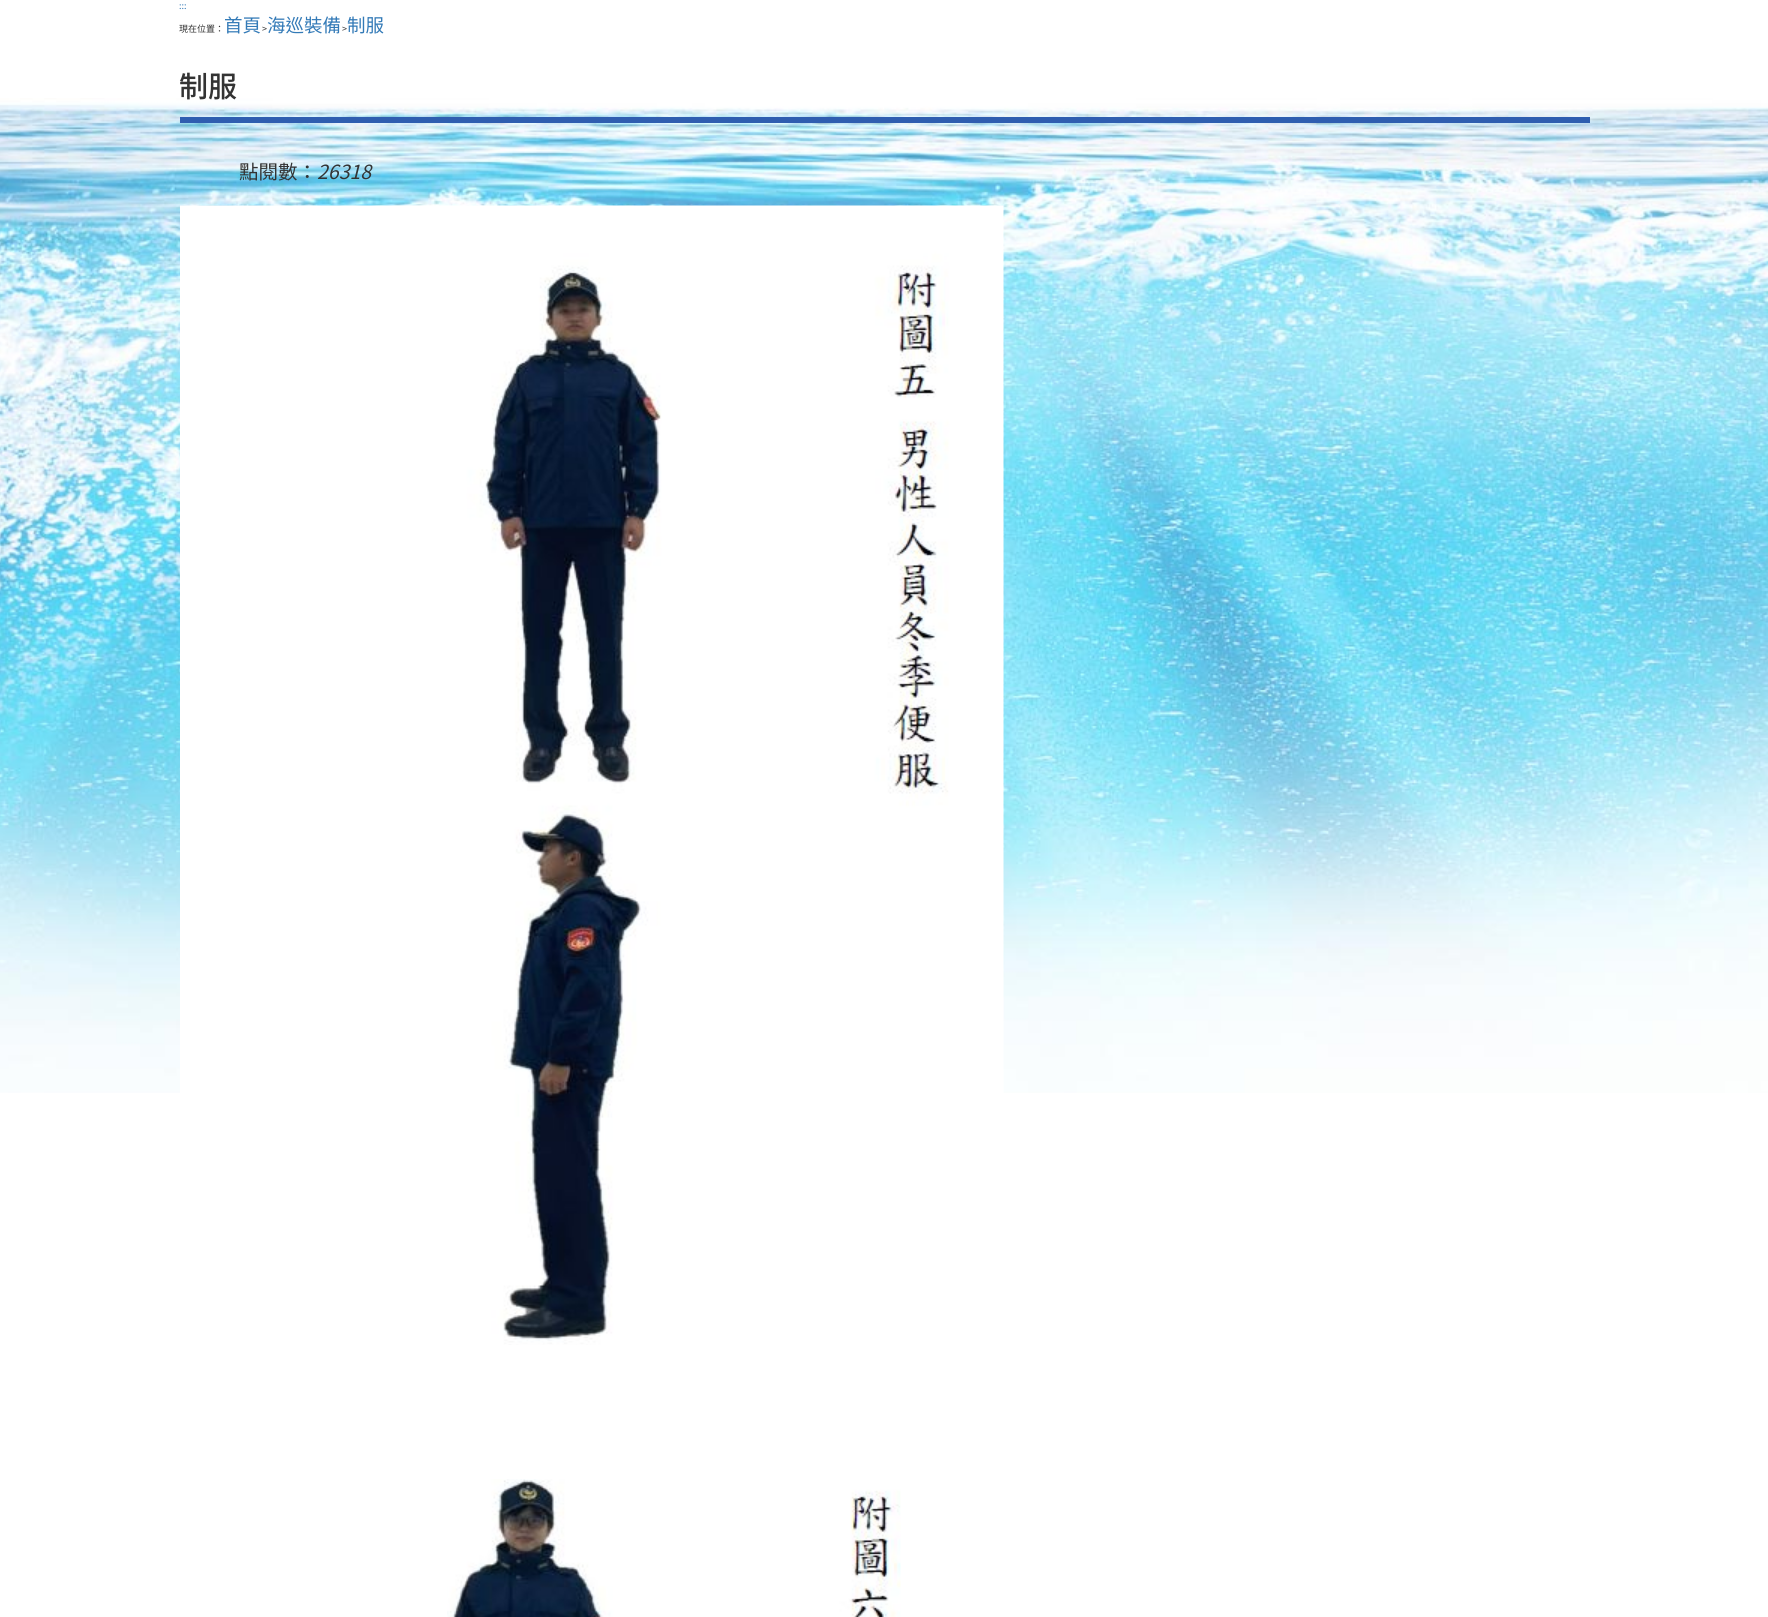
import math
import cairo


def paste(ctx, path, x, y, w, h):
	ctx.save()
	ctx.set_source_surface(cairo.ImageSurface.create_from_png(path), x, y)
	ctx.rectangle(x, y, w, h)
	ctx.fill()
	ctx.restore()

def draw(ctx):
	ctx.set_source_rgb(1, 1, 1)
	ctx.paint()
	paste(ctx, 'media/1.png', 0, 98, 1768, 995)
	ctx.select_font_face('Noto Sans TC')
	ctx.set_font_size(9)
	ctx.set_source_rgb(0.2, 0.478, 0.718)
	ctx.move_to(179, 9)
	ctx.show_text(':::')
	ctx.set_source_rgb(0.2, 0.2, 0.2)
	ctx.move_to(179, 32)
	ctx.show_text('現在位置：')
	ctx.set_font_size(18.5)
	ctx.set_source_rgb(0.2, 0.478, 0.718)
	ctx.move_to(224, 32)
	ctx.show_text('首頁')
	ctx.set_font_size(9)
	ctx.set_source_rgb(0.2, 0.2, 0.2)
	ctx.move_to(262, 32)
	ctx.show_text('>')
	ctx.set_font_size(18.5)
	ctx.set_source_rgb(0.2, 0.478, 0.718)
	ctx.move_to(267, 32)
	ctx.show_text('海巡裝備')
	ctx.set_font_size(9)
	ctx.set_source_rgb(0.2, 0.2, 0.2)
	ctx.move_to(342, 32)
	ctx.show_text('>')
	ctx.set_font_size(18.5)
	ctx.set_source_rgb(0.2, 0.478, 0.718)
	ctx.move_to(347, 32)
	ctx.show_text('制服')
	ctx.set_source_rgb(0.184, 0.369, 0.69)
	ctx.rectangle(180, 117, 1410, 6)
	ctx.fill()
	ctx.select_font_face('Noto Sans TC Medium')
	ctx.set_font_size(29)
	ctx.set_source_rgb(0.2, 0.2, 0.2)
	ctx.move_to(179, 97)
	ctx.show_text('制服')
	ctx.select_font_face('Noto Sans TC')
	ctx.set_font_size(19.5)
	ctx.move_to(239, 179)
	ctx.show_text('點閱數：')
	ctx.select_font_face('Noto Sans TC', cairo.FONT_SLANT_ITALIC)
	ctx.move_to(317, 179)
	ctx.show_text('26318')
	paste(ctx, 'media/2.png', 180, 205, 824, 1140)
	paste(ctx, 'media/3.png', 447, 1479, 454, 138)


surface = cairo.ImageSurface(cairo.FORMAT_RGB24, 1768, 1617)
ctx = cairo.Context(surface)
options = cairo.FontOptions()
options.set_hint_metrics(cairo.HINT_METRICS_OFF)
options.set_hint_style(cairo.HINT_STYLE_NONE)
ctx.set_font_options(options)
ctx.set_miter_limit(4)
draw(ctx)
surface.write_to_png('image.png')
